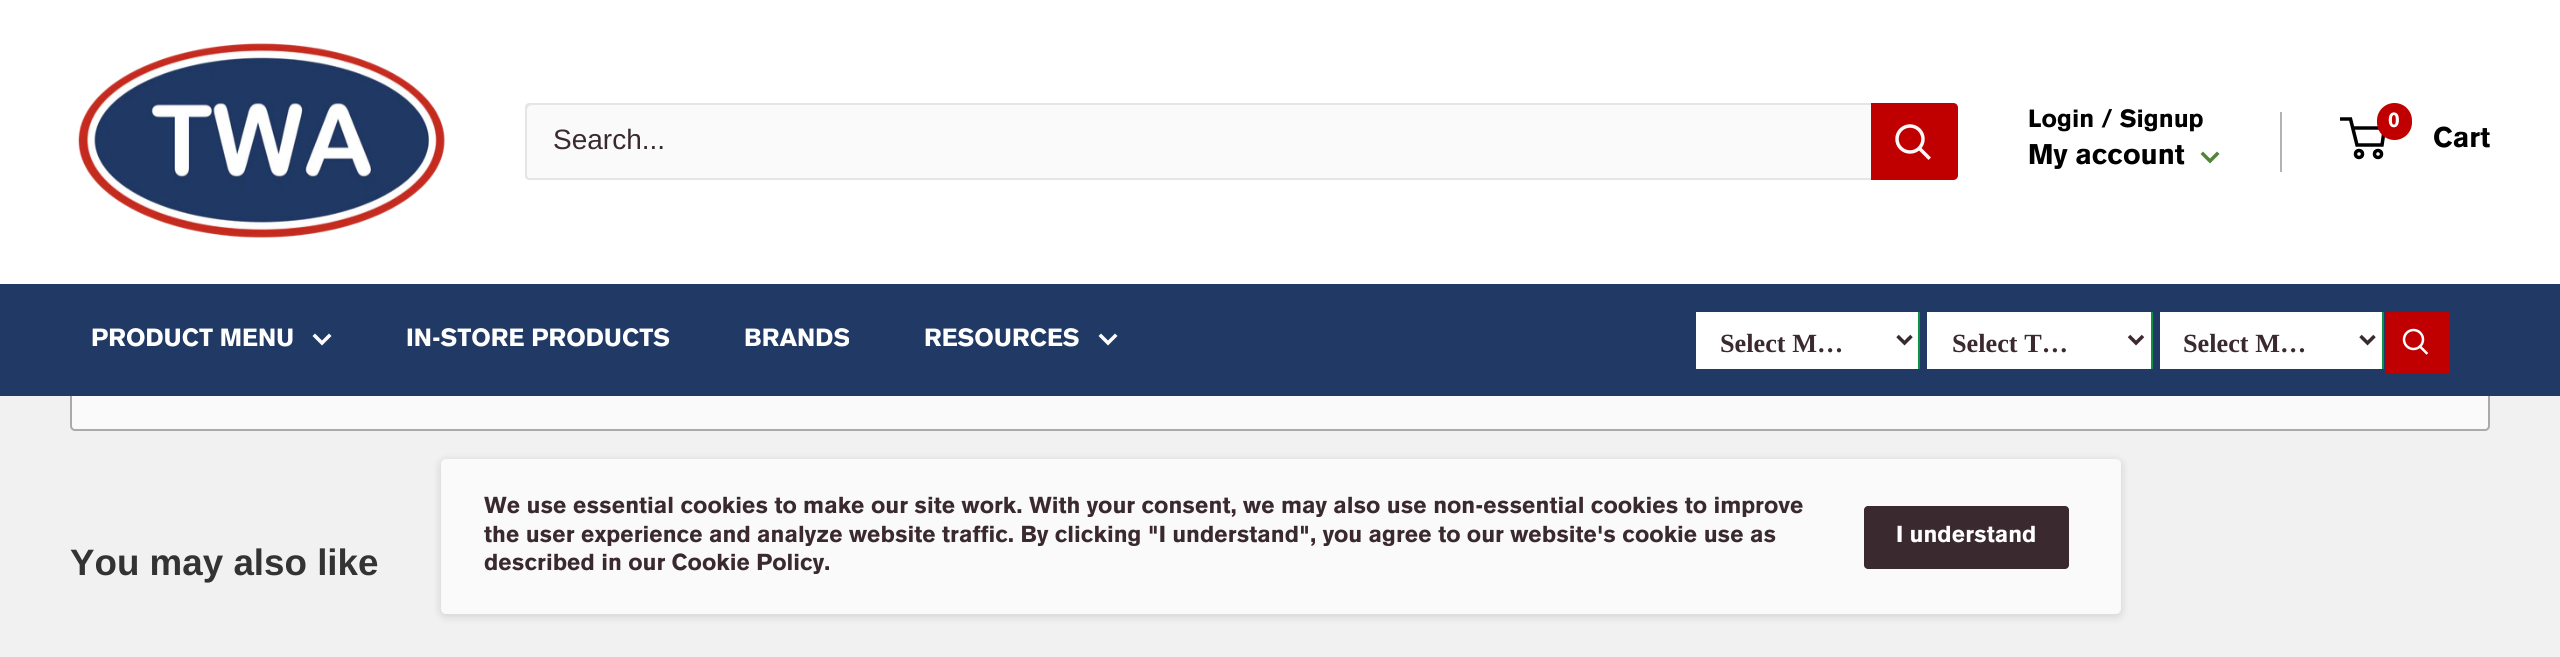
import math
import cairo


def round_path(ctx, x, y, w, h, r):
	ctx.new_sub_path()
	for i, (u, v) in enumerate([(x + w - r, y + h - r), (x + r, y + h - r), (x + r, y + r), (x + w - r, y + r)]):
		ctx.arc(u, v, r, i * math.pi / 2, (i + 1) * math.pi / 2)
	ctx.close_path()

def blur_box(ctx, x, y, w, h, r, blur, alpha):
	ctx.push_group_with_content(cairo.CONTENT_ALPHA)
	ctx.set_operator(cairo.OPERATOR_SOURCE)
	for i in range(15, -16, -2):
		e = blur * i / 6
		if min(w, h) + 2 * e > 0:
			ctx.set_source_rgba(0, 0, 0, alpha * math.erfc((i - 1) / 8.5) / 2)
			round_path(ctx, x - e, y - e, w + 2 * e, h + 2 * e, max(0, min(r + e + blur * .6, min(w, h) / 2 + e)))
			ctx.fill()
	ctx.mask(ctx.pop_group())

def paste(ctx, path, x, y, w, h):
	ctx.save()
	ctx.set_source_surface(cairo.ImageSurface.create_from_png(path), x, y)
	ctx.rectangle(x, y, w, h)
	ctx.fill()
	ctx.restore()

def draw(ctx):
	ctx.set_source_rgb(0.945, 0.945, 0.945)
	ctx.paint()
	ctx.set_source_rgb(1, 1, 1)
	ctx.rectangle(0, 0, 2560, 284)
	ctx.fill()
	paste(ctx, 'media/1.png', 78, 43, 367, 195)
	ctx.set_source_rgb(0.98, 0.98, 0.98)
	round_path(ctx, 525, 103, 1433, 77, 5)
	ctx.fill()
	ctx.set_source_rgb(0.976, 0.882, 0.702)
	ctx.new_path()
	ctx.move_to(526, 177)
	ctx.curve_to(526, 179, 528, 180, 530, 180)
	ctx.line_to(1953, 180)
	ctx.curve_to(1956, 180, 1958, 178, 1958, 175)
	ctx.line_to(1958, 108)
	ctx.curve_to(1958, 106, 1957, 104, 1954, 103)
	ctx.curve_to(1955, 104, 1956, 105, 1956, 107)
	ctx.line_to(1956, 173)
	ctx.curve_to(1956, 176, 1954, 178, 1951, 178)
	ctx.line_to(528, 178)
	ctx.close_path()
	ctx.fill()
	ctx.set_source_rgba(0.961, 0.659, 0.051, 0.3)
	ctx.new_path()
	ctx.move_to(532, 105)
	ctx.line_to(1955, 105)
	ctx.line_to(1957, 105)
	ctx.curve_to(1956, 104, 1955, 103, 1953, 103)
	ctx.line_to(530, 103)
	ctx.curve_to(527, 103, 525, 105, 525, 108)
	ctx.line_to(525, 175)
	ctx.curve_to(525, 177, 526, 178, 527, 179)
	ctx.line_to(527, 177)
	ctx.line_to(527, 110)
	ctx.curve_to(527, 107, 529, 105, 532, 105)
	ctx.close_path()
	ctx.fill()
	ctx.set_source_rgb(0.898, 0.898, 0.898)
	ctx.set_fill_rule(cairo.FILL_RULE_EVEN_ODD)
	ctx.new_path()
	ctx.move_to(530, 103)
	ctx.line_to(1871, 103)
	ctx.line_to(1871, 180)
	ctx.line_to(530, 180)
	ctx.curve_to(527, 180, 525, 178, 525, 175)
	ctx.line_to(525, 108)
	ctx.curve_to(525, 106, 527, 103, 530, 103)
	ctx.close_path()
	ctx.move_to(530, 105)
	ctx.line_to(1871, 105)
	ctx.line_to(1871, 178)
	ctx.line_to(530, 178)
	ctx.curve_to(528, 178, 527, 177, 527, 175)
	ctx.line_to(527, 108)
	ctx.curve_to(527, 107, 528, 105, 530, 105)
	ctx.close_path()
	ctx.fill()
	ctx.select_font_face('Liberation Sans')
	ctx.set_font_size(28)
	ctx.set_source_rgb(0.227, 0.165, 0.184)
	ctx.move_to(553, 149)
	ctx.show_text('Search...')
	ctx.set_source_rgb(0.753, 0, 0)
	ctx.new_path()
	ctx.move_to(1871, 103)
	ctx.line_to(1953, 103)
	ctx.curve_to(1956, 103, 1958, 105, 1958, 108)
	ctx.line_to(1958, 175)
	ctx.curve_to(1958, 178, 1956, 180, 1953, 180)
	ctx.line_to(1871, 180)
	ctx.close_path()
	ctx.fill()
	ctx.new_path()
	ctx.move_to(1928.5, 157.5)
	ctx.line_to(1920, 149)
	ctx.set_source_rgb(0.98, 0.98, 0.98)
	ctx.set_line_width(3.5)
	ctx.set_line_cap(cairo.LINE_CAP_SQUARE)
	ctx.stroke()
	ctx.arc(1910, 139, 13, 0, 2 * math.pi)
	ctx.set_line_cap(cairo.LINE_CAP_BUTT)
	ctx.stroke()
	ctx.select_font_face('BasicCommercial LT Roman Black')
	ctx.set_font_size(24.5)
	ctx.set_source_rgb(0, 0, 0)
	ctx.move_to(2028, 127)
	ctx.show_text('Login / Signup')
	ctx.set_source_rgb(0.702, 0.702, 0.702)
	ctx.rectangle(2280, 112, 2, 60)
	ctx.fill()
	ctx.set_font_size(28)
	ctx.set_source_rgb(0, 0, 0)
	ctx.move_to(2028, 164)
	ctx.show_text('My account')
	ctx.new_path()
	ctx.move_to(2217, 154)
	ctx.line_to(2210, 161)
	ctx.line_to(2203, 154)
	ctx.set_source_rgb(0.322, 0.518, 0.231)
	ctx.set_line_cap(cairo.LINE_CAP_SQUARE)
	ctx.stroke()
	ctx.arc(2359, 154, 3.5, 0, 2 * math.pi)
	ctx.set_source_rgb(0, 0, 0)
	ctx.set_line_cap(cairo.LINE_CAP_BUTT)
	ctx.stroke()
	ctx.arc(2378, 154, 3.5, 0, 2 * math.pi)
	ctx.stroke()
	ctx.new_path()
	ctx.move_to(2352.5, 128)
	ctx.line_to(2384.5, 128)
	ctx.line_to(2382, 145)
	ctx.line_to(2357, 145)
	ctx.line_to(2350.5, 119)
	ctx.line_to(2340, 119)
	ctx.stroke()
	ctx.set_source_rgb(0.753, 0, 0)
	round_path(ctx, 2377, 103, 35, 37, 17.5)
	ctx.fill()
	ctx.set_font_size(21)
	ctx.set_source_rgb(1, 1, 1)
	ctx.move_to(2388, 127)
	ctx.show_text('0')
	ctx.set_font_size(28)
	ctx.set_source_rgb(0, 0, 0)
	ctx.move_to(2433, 147)
	ctx.show_text('Cart')
	ctx.set_source_rgb(0.98, 0.98, 0.98)
	round_path(ctx, 71, 328, 2418, 102, 4)
	ctx.fill_preserve()
	ctx.set_source_rgb(0.667, 0.667, 0.667)
	ctx.set_line_width(2)
	ctx.stroke()
	ctx.set_source_rgb(0.125, 0.224, 0.396)
	ctx.rectangle(0, 284, 2560, 112)
	ctx.fill()
	ctx.set_font_size(24.5)
	ctx.set_source_rgb(1, 1, 1)
	ctx.move_to(91, 346)
	ctx.show_text('PRODUCT MENU')
	ctx.new_path()
	ctx.move_to(329, 336)
	ctx.line_to(322, 343)
	ctx.line_to(315, 336)
	ctx.set_line_width(3.5)
	ctx.set_line_cap(cairo.LINE_CAP_SQUARE)
	ctx.stroke()
	for x, y, s in [
		(406, 346, 'IN-STORE PRODUCTS'),
		(744, 346, 'BRANDS'),
		(924, 346, 'RESOURCES'),
	]:
		ctx.move_to(x, y)
		ctx.show_text(s)
	ctx.new_path()
	ctx.move_to(1115, 336)
	ctx.line_to(1108, 343)
	ctx.line_to(1101, 336)
	ctx.stroke()
	ctx.rectangle(1696, 312, 222, 57)
	ctx.fill()
	ctx.set_source_rgb(0.047, 0.576, 0.275)
	ctx.rectangle(1918, 312, 2, 57)
	ctx.fill()
	ctx.new_path()
	ctx.move_to(1897.5, 336)
	ctx.line_to(1904.5, 343)
	ctx.line_to(1911.5, 336)
	ctx.set_source_rgb(0.227, 0.165, 0.184)
	ctx.set_line_cap(cairo.LINE_CAP_BUTT)
	ctx.stroke()
	ctx.select_font_face('Liberation Serif', cairo.FONT_SLANT_NORMAL, cairo.FONT_WEIGHT_BOLD)
	ctx.set_font_size(26.25)
	ctx.move_to(1720, 352)
	ctx.show_text('Select M…')
	ctx.set_source_rgb(1, 1, 1)
	ctx.rectangle(1927, 312, 224, 57)
	ctx.fill()
	ctx.set_source_rgb(0.047, 0.576, 0.275)
	ctx.rectangle(2151, 312, 2, 57)
	ctx.fill()
	ctx.new_path()
	ctx.move_to(2129, 336)
	ctx.line_to(2136, 343)
	ctx.line_to(2143, 336)
	ctx.set_source_rgb(0.227, 0.165, 0.184)
	ctx.stroke()
	ctx.move_to(1952, 352)
	ctx.show_text('Select T…')
	ctx.set_source_rgb(1, 1, 1)
	ctx.rectangle(2160, 312, 222, 57)
	ctx.fill()
	ctx.set_source_rgb(0.047, 0.576, 0.275)
	ctx.rectangle(2382, 312, 2, 57)
	ctx.fill()
	ctx.new_path()
	ctx.move_to(2360.5, 336)
	ctx.line_to(2367.5, 343)
	ctx.line_to(2374.5, 336)
	ctx.set_source_rgb(0.227, 0.165, 0.184)
	ctx.stroke()
	ctx.move_to(2183, 352)
	ctx.show_text('Select M…')
	ctx.set_source_rgb(0.753, 0, 0)
	ctx.rectangle(2385, 312, 65, 61)
	ctx.fill()
	ctx.new_path()
	ctx.move_to(2426.5, 353)
	ctx.line_to(2420, 346.5)
	ctx.set_source_rgb(1, 1, 1)
	ctx.set_line_width(2.5)
	ctx.set_line_cap(cairo.LINE_CAP_SQUARE)
	ctx.stroke()
	ctx.arc(2413.5, 339.5, 9.5, 0, 2 * math.pi)
	ctx.set_line_cap(cairo.LINE_CAP_BUTT)
	ctx.stroke()
	ctx.select_font_face('Liberation Sans', cairo.FONT_SLANT_NORMAL, cairo.FONT_WEIGHT_BOLD)
	ctx.set_font_size(36.75)
	ctx.set_source_rgb(0.2, 0.2, 0.2)
	ctx.move_to(70, 575)
	ctx.show_text('You may also like')
	ctx.set_source_rgb(0, 0, 0)
	blur_box(ctx, 439, 459, 1684, 159, 7, 3.5, 0.1)
	ctx.set_source_rgb(0.98, 0.98, 0.98)
	round_path(ctx, 441, 459, 1680, 155, 5)
	ctx.fill()
	ctx.select_font_face('BasicCommercial LT Roman Black')
	ctx.set_font_size(22.75)
	ctx.set_source_rgb(0.227, 0.165, 0.184)
	for x, y, s in [
		(484, 513, 'We use essential cookies to make our site work. With your consent, we may also use non-essential cookies to improve'),
		(484, 542, 'the user experience and analyze website traffic. By clicking "I understand", you agree to our website\'s cookie use as'),
		(484, 570, 'described in our Cookie Policy.'),
	]:
		ctx.move_to(x, y)
		ctx.show_text(s)
	round_path(ctx, 1864, 506, 205, 63, 4)
	ctx.fill()
	ctx.set_source_rgb(1, 1, 1)
	ctx.move_to(1896, 542)
	ctx.show_text('I understand')


surface = cairo.ImageSurface(cairo.FORMAT_RGB24, 2560, 657)
ctx = cairo.Context(surface)
options = cairo.FontOptions()
options.set_hint_metrics(cairo.HINT_METRICS_OFF)
options.set_hint_style(cairo.HINT_STYLE_NONE)
ctx.set_font_options(options)
ctx.set_miter_limit(4)
draw(ctx)
surface.write_to_png('image.png')
